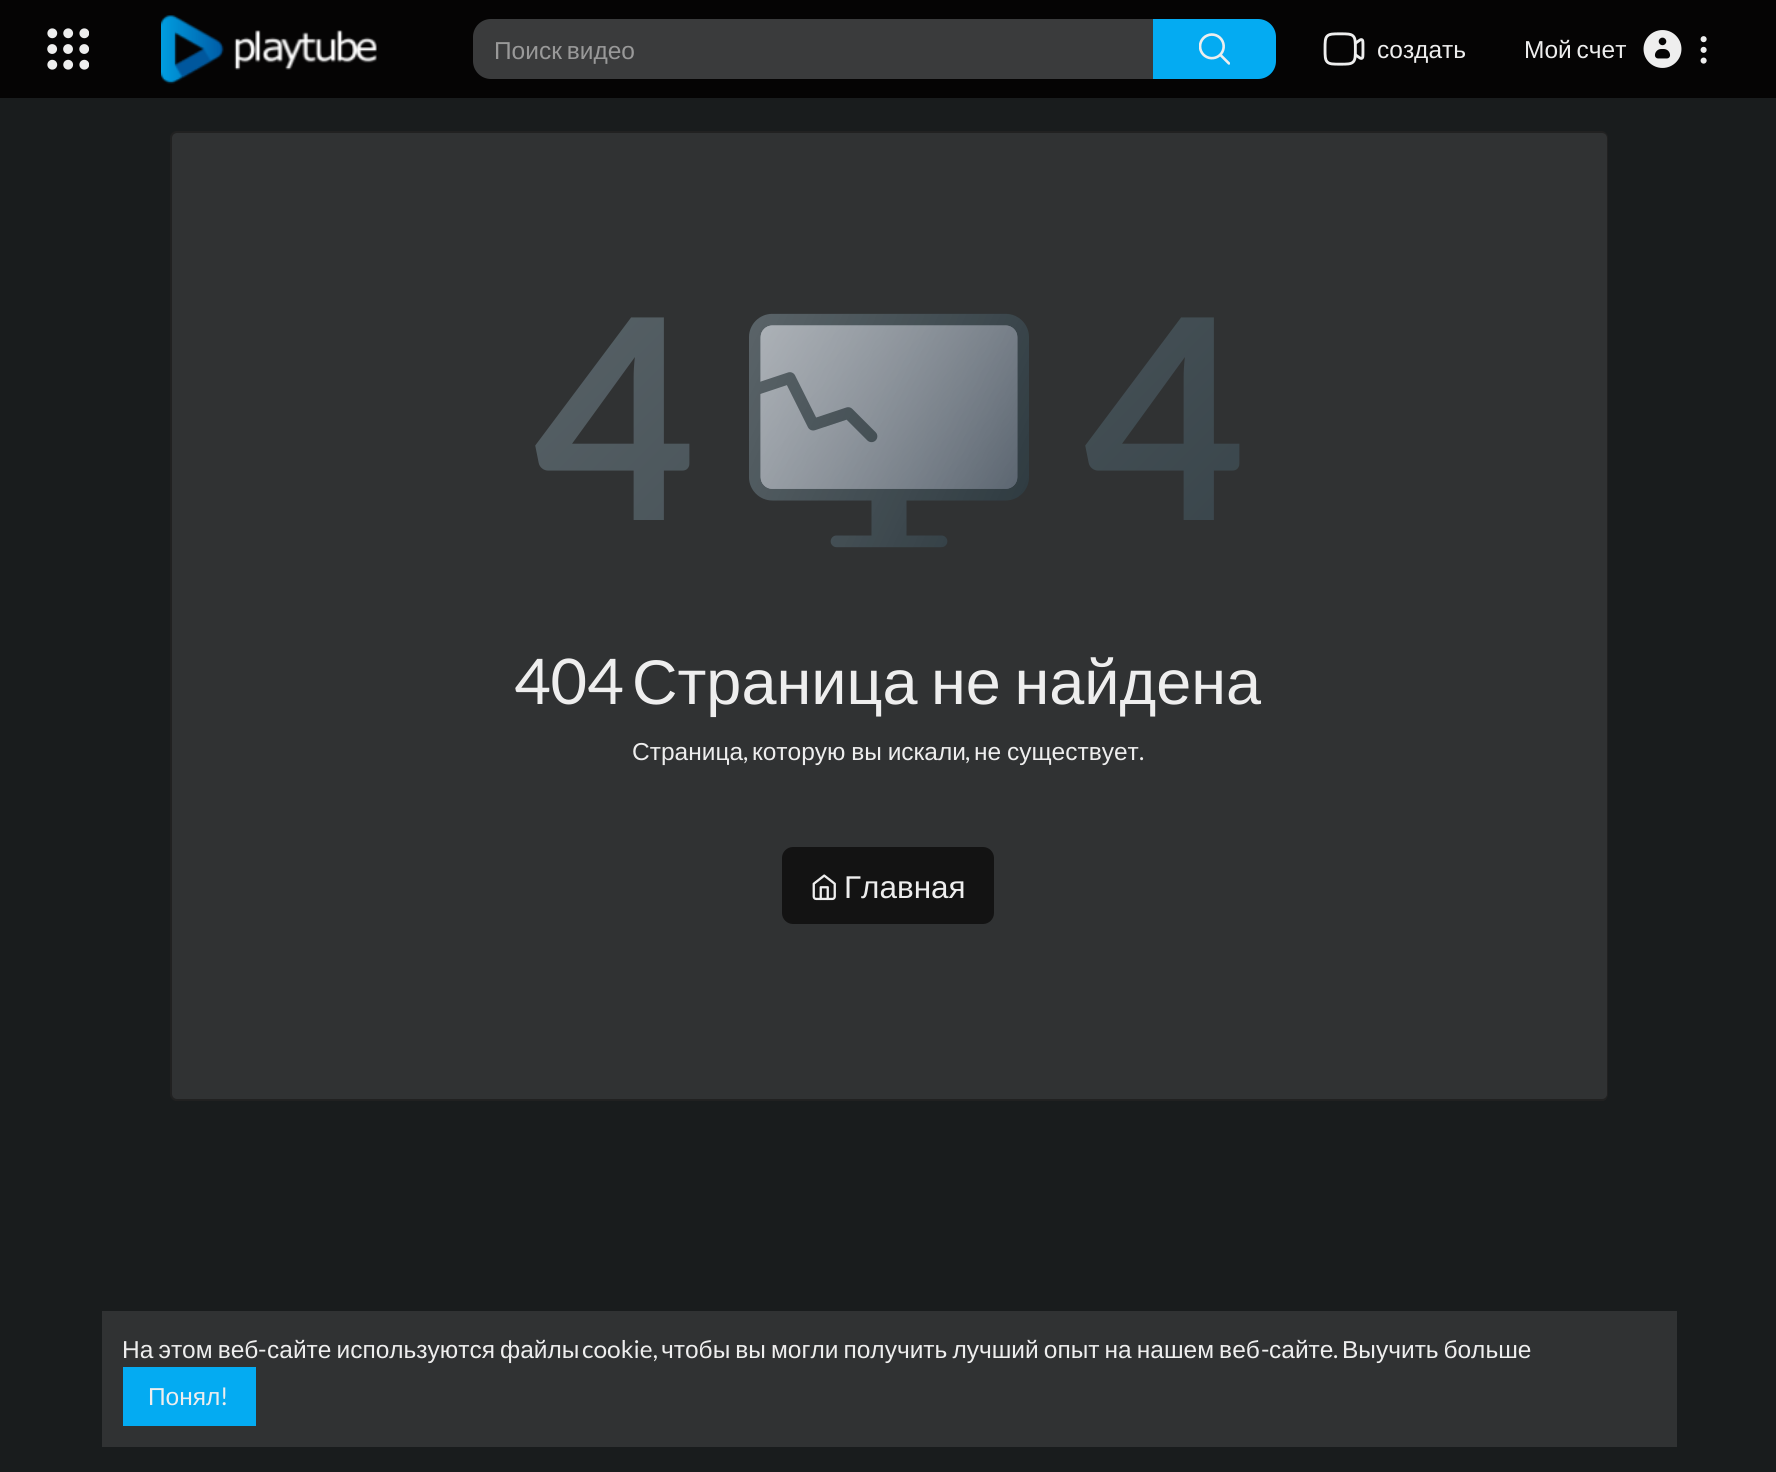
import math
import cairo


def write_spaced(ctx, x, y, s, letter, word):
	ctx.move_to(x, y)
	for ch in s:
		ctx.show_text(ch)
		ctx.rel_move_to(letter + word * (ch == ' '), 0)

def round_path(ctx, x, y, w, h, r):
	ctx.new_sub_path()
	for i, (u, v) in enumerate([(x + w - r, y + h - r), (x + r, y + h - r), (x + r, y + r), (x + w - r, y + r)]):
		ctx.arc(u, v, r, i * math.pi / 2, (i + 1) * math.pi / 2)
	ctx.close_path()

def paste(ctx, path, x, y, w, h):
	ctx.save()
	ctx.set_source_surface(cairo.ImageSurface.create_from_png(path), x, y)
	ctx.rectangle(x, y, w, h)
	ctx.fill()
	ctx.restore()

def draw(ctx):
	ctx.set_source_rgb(0.098, 0.11, 0.114)
	ctx.paint()
	ctx.set_source_rgb(0.02, 0.016, 0.016)
	ctx.rectangle(0, 0, 1776, 98)
	ctx.fill()
	paste(ctx, 'media/1.png', 47, 28, 42, 42)
	paste(ctx, 'media/2.png', 161, 15, 216, 69)
	ctx.set_source_rgb(0.227, 0.231, 0.235)
	ctx.new_path()
	ctx.move_to(491, 19)
	ctx.line_to(1153, 19)
	ctx.line_to(1153, 79)
	ctx.line_to(491, 79)
	ctx.curve_to(481, 79, 473, 71, 473, 61)
	ctx.line_to(473, 37)
	ctx.curve_to(473, 27, 481, 19, 491, 19)
	ctx.close_path()
	ctx.fill()
	ctx.select_font_face('Liberation Sans')
	ctx.set_font_size(24.5)
	ctx.set_source_rgb(0.6, 0.6, 0.6)
	write_spaced(ctx, 494, 59, 'Поиск видео', 0, -2)
	ctx.set_source_rgb(0.016, 0.671, 0.949)
	ctx.new_path()
	ctx.move_to(1153, 19)
	ctx.line_to(1258, 19)
	ctx.curve_to(1268, 19, 1276, 27, 1276, 37)
	ctx.line_to(1276, 61)
	ctx.curve_to(1276, 71, 1268, 79, 1258, 79)
	ctx.line_to(1153, 79)
	ctx.close_path()
	ctx.fill()
	paste(ctx, 'media/3.png', 1199, 33, 31, 32)
	paste(ctx, 'media/4.png', 1323, 32, 42, 34)
	ctx.set_source_rgb(0.933, 0.933, 0.933)
	ctx.move_to(1377, 58)
	ctx.show_text('создать')
	write_spaced(ctx, 1524, 58, 'Мой счет', 0, -2)
	paste(ctx, 'media/5.png', 1643, 30, 39, 38)
	paste(ctx, 'media/6.png', 1700, 36, 7, 28)
	round_path(ctx, 171, 132, 1436, 968, 6)
	ctx.set_source_rgb(0.129, 0.129, 0.129)
	ctx.stroke()
	ctx.new_path()
	ctx.move_to(172, 1096)
	ctx.curve_to(172, 1099, 174, 1101, 177, 1101)
	ctx.line_to(1602, 1101)
	ctx.curve_to(1605, 1101, 1607, 1099, 1607, 1096)
	ctx.line_to(1607, 140)
	ctx.line_to(1606, 138)
	ctx.line_to(1606, 1094)
	ctx.curve_to(1606, 1097, 1604, 1099, 1601, 1099)
	ctx.line_to(177, 1099)
	ctx.curve_to(175, 1099, 173, 1098, 172, 1096)
	ctx.close_path()
	ctx.fill()
	ctx.set_source_rgb(0.188, 0.196, 0.2)
	round_path(ctx, 172, 133, 1435, 966, 5)
	ctx.fill()
	ctx.select_font_face('Lato', cairo.FONT_SLANT_NORMAL, cairo.FONT_WEIGHT_BOLD)
	ctx.set_font_size(280)
	gradient = cairo.LinearGradient(626, 149, 1150, 673)
	gradient.add_color_stop_rgba(0, 0.349, 0.388, 0.408, 1)
	gradient.add_color_stop_rgba(1, 0.22, 0.267, 0.29, 1)
	ctx.set_source(gradient)
	ctx.move_to(532, 520)
	ctx.show_text('4')
	paste(ctx, 'media/7.png', 749, 313, 280, 235)
	ctx.move_to(1082, 520)
	ctx.show_text('4')
	ctx.select_font_face('Lato')
	ctx.set_font_size(63)
	ctx.set_source_rgb(0.933, 0.933, 0.933)
	ctx.move_to(514, 704)
	ctx.show_text('404')
	ctx.select_font_face('Liberation Sans')
	write_spaced(ctx, 632, 704, 'Страница не найдена', 0, -4)
	ctx.set_font_size(24.5)
	ctx.move_to(632, 760)
	ctx.show_text('Страница')
	ctx.select_font_face('Lato')
	ctx.move_to(743, 760)
	ctx.show_text(',')
	ctx.select_font_face('Liberation Sans')
	write_spaced(ctx, 752, 760, 'которую вы искали', 0, -1)
	ctx.select_font_face('Lato')
	ctx.move_to(965, 760)
	ctx.show_text(',')
	ctx.select_font_face('Liberation Sans')
	write_spaced(ctx, 974, 760, 'не существует', 0, -1)
	ctx.select_font_face('Lato')
	ctx.move_to(1139, 760)
	ctx.show_text('.')
	ctx.set_source_rgb(0.075, 0.075, 0.075)
	round_path(ctx, 782, 847, 212, 77, 11)
	ctx.fill()
	paste(ctx, 'media/8.png', 812, 874, 24, 27)
	ctx.select_font_face('Liberation Sans')
	ctx.set_font_size(31.5)
	ctx.set_source_rgb(0.933, 0.933, 0.933)
	ctx.move_to(844, 898)
	ctx.show_text('Главная')
	ctx.set_source_rgb(0.188, 0.196, 0.2)
	ctx.rectangle(102, 1311, 1575, 136)
	ctx.fill()
	ctx.set_font_size(24.5)
	ctx.set_source_rgb(0.933, 0.933, 0.933)
	write_spaced(ctx, 122, 1358, 'На этом веб', 0, -1.75)
	ctx.select_font_face('Lato')
	ctx.move_to(258, 1358)
	ctx.show_text('-')
	ctx.select_font_face('Liberation Sans')
	write_spaced(ctx, 267, 1358, 'сайте используются файлы', 0, -1.75)
	ctx.select_font_face('Lato')
	ctx.move_to(582, 1358)
	ctx.show_text('cookie,')
	ctx.select_font_face('Liberation Sans')
	write_spaced(ctx, 661, 1358, 'чтобы вы могли получить лучший опыт на нашем веб', 0, -1.75)
	ctx.select_font_face('Lato')
	ctx.move_to(1261, 1358)
	ctx.show_text('-')
	ctx.select_font_face('Liberation Sans')
	ctx.move_to(1269, 1358)
	ctx.show_text('сайте')
	write_spaced(ctx, 1342, 1358, 'Выучить больше', 0, -2)
	ctx.select_font_face('Lato')
	ctx.move_to(1333, 1358)
	ctx.show_text('.')
	ctx.set_source_rgb(0.016, 0.671, 0.949)
	ctx.rectangle(123, 1367, 133, 59)
	ctx.fill()
	ctx.select_font_face('Liberation Sans')
	ctx.set_source_rgb(0.933, 0.933, 0.933)
	ctx.move_to(148, 1405)
	ctx.show_text('Понял')
	ctx.select_font_face('Lato')
	ctx.move_to(220, 1405)
	ctx.show_text('!')


surface = cairo.ImageSurface(cairo.FORMAT_RGB24, 1776, 1472)
ctx = cairo.Context(surface)
options = cairo.FontOptions()
options.set_hint_metrics(cairo.HINT_METRICS_OFF)
options.set_hint_style(cairo.HINT_STYLE_NONE)
ctx.set_font_options(options)
ctx.set_miter_limit(4)
draw(ctx)
surface.write_to_png('image.png')
